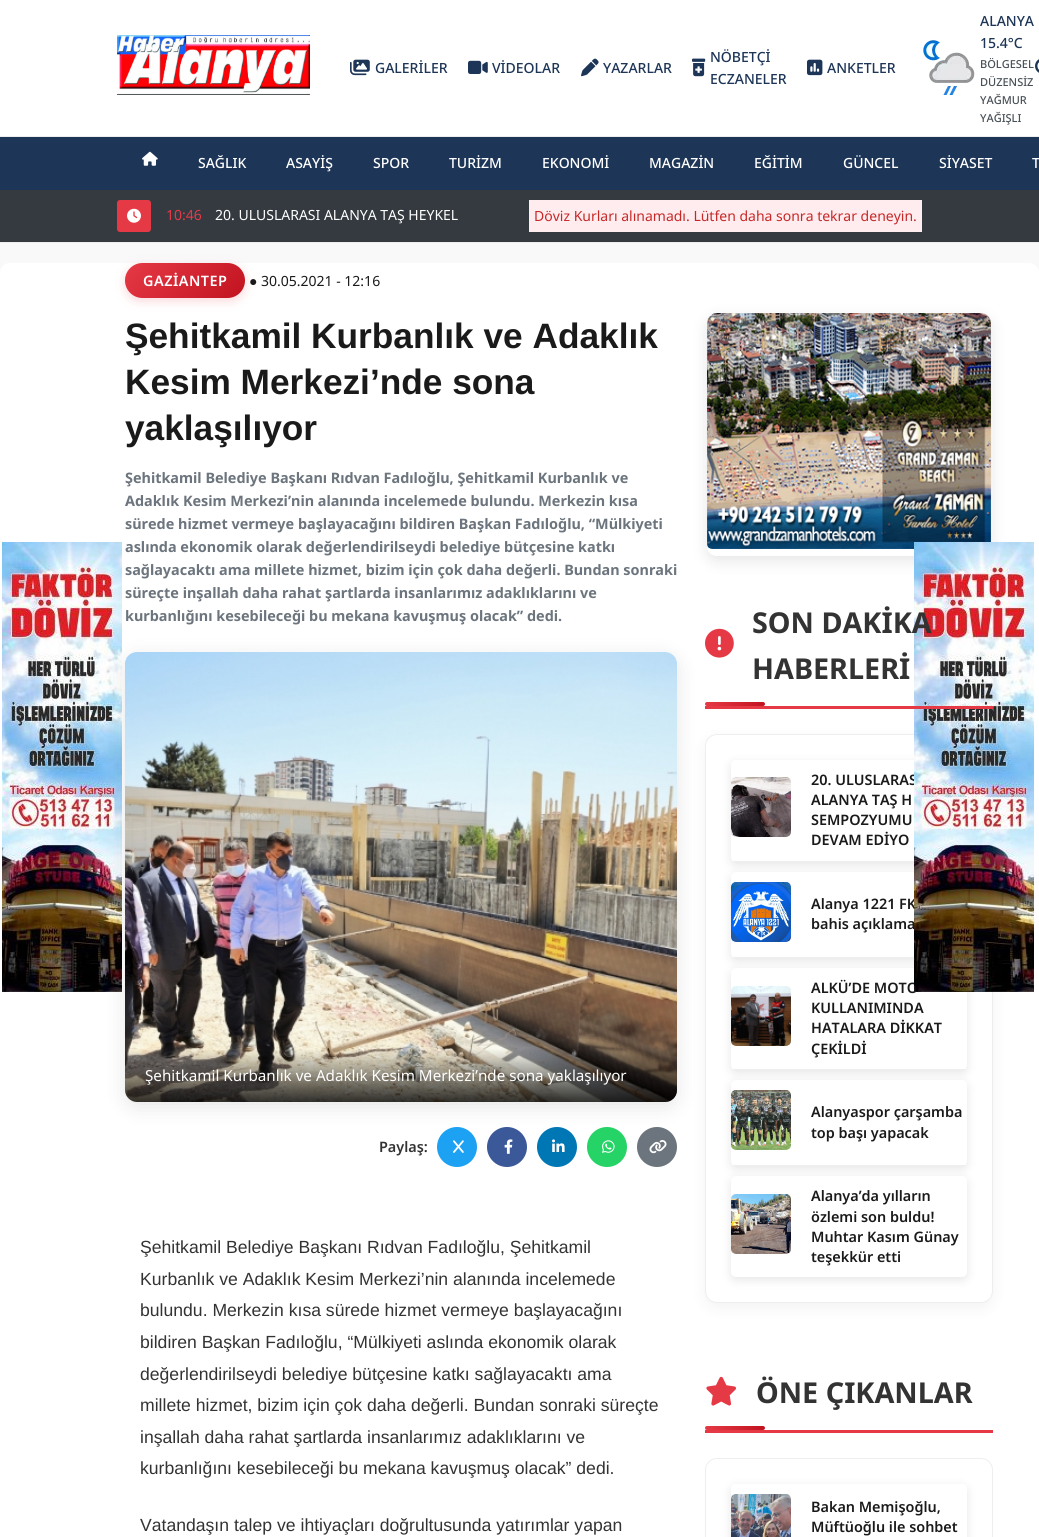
import math
import cairo


def write_spaced(ctx, x, y, s, letter, word):
	ctx.move_to(x, y)
	for ch in s:
		ctx.show_text(ch)
		ctx.rel_move_to(letter + word * (ch == ' '), 0)

def round_path(ctx, x, y, w, h, r):
	ctx.new_sub_path()
	for i, (u, v) in enumerate([(x + w - r, y + h - r), (x + r, y + h - r), (x + r, y + r), (x + w - r, y + r)]):
		ctx.arc(u, v, r, i * math.pi / 2, (i + 1) * math.pi / 2)
	ctx.close_path()

def blur_box(ctx, x, y, w, h, r, blur, alpha):
	ctx.push_group_with_content(cairo.CONTENT_ALPHA)
	ctx.set_operator(cairo.OPERATOR_SOURCE)
	for i in range(15, -16, -2):
		e = blur * i / 6
		if min(w, h) + 2 * e > 0:
			ctx.set_source_rgba(0, 0, 0, alpha * math.erfc((i - 1) / 8.5) / 2)
			round_path(ctx, x - e, y - e, w + 2 * e, h + 2 * e, max(0, min(r + e + blur * .6, min(w, h) / 2 + e)))
			ctx.fill()
	ctx.mask(ctx.pop_group())

def paste(ctx, path, x, y, w, h):
	ctx.save()
	ctx.set_source_surface(cairo.ImageSurface.create_from_png(path), x, y)
	ctx.rectangle(x, y, w, h)
	ctx.fill()
	ctx.restore()

def draw(ctx):
	ctx.set_source_rgb(0.973, 0.976, 0.98)
	ctx.paint()
	ctx.set_source_rgb(1, 1, 1)
	ctx.rectangle(0, 0, 1039, 136)
	ctx.fill()
	ctx.set_source_rgb(0.933, 0.933, 0.933)
	ctx.rectangle(0, 136, 1039, 1)
	ctx.fill()
	paste(ctx, 'media/1.png', 117, 35, 193, 60)
	paste(ctx, 'media/2.png', 350, 59, 20, 17)
	ctx.select_font_face('Noto Sans Medium')
	ctx.set_font_size(14)
	ctx.set_source_rgb(0.114, 0.208, 0.341)
	ctx.move_to(375, 73)
	ctx.show_text('GALERİLER')
	paste(ctx, 'media/3.png', 468, 60, 20, 14)
	ctx.move_to(492, 73)
	ctx.show_text('VİDEOLAR')
	paste(ctx, 'media/4.png', 581, 58, 18, 19)
	ctx.move_to(603, 73)
	ctx.show_text('YAZARLAR')
	paste(ctx, 'media/5.png', 692, 58, 14, 19)
	ctx.move_to(710, 62)
	ctx.show_text('NÖBETÇİ')
	ctx.move_to(710, 84)
	ctx.show_text('ECZANELER')
	paste(ctx, 'media/6.png', 807, 59, 16, 17)
	ctx.move_to(827, 73)
	ctx.show_text('ANKETLER')
	paste(ctx, 'media/7.png', 923, 40, 52, 55)
	ctx.move_to(980, 26)
	ctx.show_text('ALANYA')
	ctx.move_to(980, 48)
	ctx.show_text('15.4°C')
	ctx.set_font_size(11)
	ctx.set_source_rgb(0.286, 0.314, 0.341)
	for x, y, s in [
		(980, 68, 'BÖLGESEL'),
		(980, 86, 'DÜZENSİZ'),
		(980, 104, 'YAĞMUR'),
		(980, 122, 'YAĞIŞLI'),
	]:
		ctx.move_to(x, y)
		ctx.show_text(s)
	paste(ctx, 'media/8.png', 1035, 59, 4, 14)
	ctx.set_source_rgb(0.114, 0.208, 0.341)
	ctx.rectangle(0, 137, 1039, 53)
	ctx.fill()
	paste(ctx, 'media/9.png', 142, 151, 16, 15)
	ctx.set_font_size(14)
	ctx.set_source_rgb(1, 1, 1)
	for x, y, s in [
		(198, 168, 'SAĞLIK'),
		(286, 168, 'ASAYİŞ'),
		(373, 168, 'SPOR'),
		(449, 168, 'TURİZM'),
		(542, 168, 'EKONOMİ'),
		(649, 168, 'MAGAZİN'),
		(754, 168, 'EĞİTİM'),
		(843, 168, 'GÜNCEL'),
		(939, 168, 'SİYASET'),
		(1032, 168, 'T'),
	]:
		ctx.move_to(x, y)
		ctx.show_text(s)
	ctx.set_source_rgb(0.204, 0.227, 0.251)
	ctx.rectangle(0, 190, 1039, 52)
	ctx.fill()
	ctx.set_source_rgb(0.933, 0.933, 0.933)
	ctx.rectangle(0, 242, 1039, 1)
	ctx.fill()
	ctx.set_source_rgb(0.902, 0.224, 0.275)
	round_path(ctx, 117, 200, 34, 32, 3)
	ctx.fill()
	paste(ctx, 'media/10.png', 127, 208, 14, 15)
	ctx.select_font_face('Noto Sans')
	ctx.move_to(166, 220)
	ctx.show_text('10:46')
	ctx.set_source_rgb(1, 1, 1)
	ctx.move_to(215, 220)
	ctx.show_text('20. ULUSLARASI ALANYA TAŞ HEYKEL')
	ctx.set_source_rgb(1, 0.922, 0.933)
	ctx.rectangle(529, 200, 393, 32)
	ctx.fill()
	ctx.set_source_rgb(0.776, 0.157, 0.157)
	ctx.move_to(534, 221)
	ctx.show_text('Döviz Kurları alınamadı. Lütfen daha sonra tekrar deneyin.')
	ctx.set_source_rgb(1, 1, 1)
	round_path(ctx, 0, 263, 1039, 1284, 10)
	ctx.fill()
	ctx.set_source_rgb(0.902, 0.224, 0.275)
	blur_box(ctx, 125, 266, 120, 35, 17.5, 5, 0.2)
	gradient = cairo.LinearGradient(146, 242, 224, 319)
	gradient.add_color_stop_rgba(0, 0.902, 0.224, 0.275, 1)
	gradient.add_color_stop_rgba(1, 0.757, 0.071, 0.122, 1)
	ctx.set_source(gradient)
	round_path(ctx, 125, 263, 120, 35, 17.5)
	ctx.fill()
	ctx.select_font_face('Noto Sans SemiBold')
	ctx.set_font_size(14.4)
	ctx.set_source_rgb(1, 1, 1)
	write_spaced(ctx, 143, 286, 'GAZİANTEP', 0.5, 0)
	ctx.select_font_face('Liberation Sans')
	ctx.set_font_size(14)
	ctx.set_source_rgb(0.102, 0.102, 0.102)
	ctx.move_to(249, 286)
	ctx.show_text('●')
	ctx.select_font_face('Noto Sans')
	ctx.move_to(261, 286)
	ctx.show_text('30.05.2021 - 12:16')
	ctx.select_font_face('Liberation Sans', cairo.FONT_SLANT_NORMAL, cairo.FONT_WEIGHT_BOLD)
	ctx.set_font_size(35.25)
	for x, y, s in [
		(125, 348, 'Şehitkamil Kurbanlık ve Adaklık'),
		(125, 394, 'Kesim Merkezi’nde sona'),
		(125, 440, 'yaklaşılıyor'),
	]:
		ctx.move_to(x, y)
		ctx.show_text(s)
	ctx.select_font_face('Noto Sans', cairo.FONT_SLANT_NORMAL, cairo.FONT_WEIGHT_BOLD)
	ctx.set_font_size(14.4)
	ctx.set_source_rgb(0.424, 0.459, 0.49)
	for x, y, s in [
		(125, 483, 'Şehitkamil Belediye Başkanı Rıdvan Fadıloğlu, Şehitkamil Kurbanlık ve'),
		(125, 506, 'Adaklık Kesim Merkezi’nin alanında incelemede bulundu. Merkezin kısa'),
		(125, 529, 'sürede hizmet vermeye başlayacağını bildiren Başkan Fadıloğlu, “Mülkiyeti'),
		(125, 552, 'aslında ekonomik olarak değerlendirilseydi belediye bütçesine katkı'),
		(125, 575, 'sağlayacaktı ama millete hizmet, bizim için çok daha değerli. Bundan sonraki'),
		(125, 598, 'süreçte inşallah daha rahat şartlarda insanlarımız adaklıklarını ve'),
		(125, 621, 'kurbanlığını kesebileceği bu mekana kavuşmuş olacak” dedi.'),
	]:
		ctx.move_to(x, y)
		ctx.show_text(s)
	ctx.set_source_rgb(0.114, 0.631, 0.949)
	ctx.new_path()
	ctx.arc(457, 1147, 20, 0, 2 * math.pi)
	ctx.fill()
	ctx.set_source_rgb(0.231, 0.349, 0.596)
	ctx.arc(507, 1147, 20, 0, 2 * math.pi)
	ctx.fill()
	ctx.set_source_rgb(0, 0.467, 0.71)
	ctx.arc(557, 1147, 20, 0, 2 * math.pi)
	ctx.fill()
	ctx.set_source_rgb(0.145, 0.827, 0.4)
	ctx.arc(607, 1147, 20, 0, 2 * math.pi)
	ctx.fill()
	ctx.set_source_rgb(0.424, 0.459, 0.49)
	ctx.arc(657, 1147, 20, 0, 2 * math.pi)
	ctx.fill()
	ctx.set_source_rgb(0, 0, 0)
	blur_box(ctx, 705, 739, 288, 569, 12, 7.5, 0.05)
	ctx.set_source_rgb(1, 1, 1)
	round_path(ctx, 705.5, 734.5, 287, 568, 11.5)
	ctx.fill_preserve()
	ctx.set_source_rgb(0.933, 0.933, 0.933)
	ctx.set_line_width(1)
	ctx.stroke()
	paste(ctx, 'media/26.png', 2, 542, 120, 450)
	ctx.set_source_rgb(0, 0, 0)
	blur_box(ctx, 125, 657, 552, 450, 12, 10, 0.1)
	paste(ctx, 'media/11.png', 125, 652, 552, 450)
	gradient = cairo.LinearGradient(401, 1049, 401, 1102)
	gradient.add_color_stop_rgba(0, 0, 0, 0, 0)
	gradient.add_color_stop_rgba(1, 0, 0, 0, 0.8)
	ctx.set_source(gradient)
	ctx.new_path()
	ctx.move_to(125, 1049)
	ctx.line_to(677, 1049)
	ctx.line_to(677, 1090)
	ctx.curve_to(677, 1096.5, 671.5, 1102, 665, 1102)
	ctx.line_to(137, 1102)
	ctx.curve_to(130.5, 1102, 125, 1096.5, 125, 1090)
	ctx.close_path()
	ctx.fill()
	ctx.select_font_face('Noto Sans')
	ctx.set_font_size(15.2)
	ctx.set_source_rgb(1, 1, 1)
	ctx.move_to(145, 1081)
	ctx.show_text('Şehitkamil Kurbanlık ve Adaklık Kesim Merkezi’nde sona yaklaşılıyor')
	ctx.select_font_face('Noto Sans SemiBold')
	ctx.set_font_size(14.4)
	ctx.set_source_rgb(0.2, 0.2, 0.2)
	ctx.move_to(379, 1152)
	ctx.show_text('Paylaş:')
	paste(ctx, 'media/12.png', 453, 1140, 11, 13)
	paste(ctx, 'media/13.png', 504, 1139, 9, 15)
	paste(ctx, 'media/14.png', 552, 1139, 13, 13)
	paste(ctx, 'media/15.png', 602, 1140, 13, 13)
	paste(ctx, 'media/16.png', 649, 1140, 18, 14)
	ctx.select_font_face('Liberation Sans')
	ctx.set_font_size(17.6)
	for x, y, s in [
		(140, 1253, 'Şehitkamil Belediye Başkanı Rıdvan Fadıloğlu, Şehitkamil'),
		(140, 1285, 'Kurbanlık ve Adaklık Kesim Merkezi’nin alanında incelemede'),
		(140, 1316, 'bulundu. Merkezin kısa sürede hizmet vermeye başlayacağını'),
		(140, 1348, 'bildiren Başkan Fadıloğlu, “Mülkiyeti aslında ekonomik olarak'),
		(140, 1380, 'değerlendirilseydi belediye bütçesine katkı sağlayacaktı ama'),
		(140, 1411, 'millete hizmet, bizim için çok daha değerli. Bundan sonraki süreçte'),
		(140, 1443, 'inşallah daha rahat şartlarda insanlarımız adaklıklarını ve'),
		(140, 1474, 'kurbanlığını kesebileceği bu mekana kavuşmuş olacak” dedi.'),
		(140, 1531, 'Vatandaşın talep ve ihtiyaçları doğrultusunda yatırımlar yapan'),
	]:
		ctx.move_to(x, y)
		ctx.show_text(s)
	ctx.save()
	ctx.set_fill_rule(cairo.FILL_RULE_EVEN_ODD)
	ctx.new_path()
	ctx.move_to(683, 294)
	ctx.line_to(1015, 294)
	ctx.line_to(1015, 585)
	ctx.line_to(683, 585)
	ctx.close_path()
	ctx.move_to(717, 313)
	ctx.line_to(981, 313)
	ctx.curve_to(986.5, 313, 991, 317.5, 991, 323)
	ctx.line_to(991, 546)
	ctx.curve_to(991, 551.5, 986.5, 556, 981, 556)
	ctx.line_to(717, 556)
	ctx.curve_to(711.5, 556, 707, 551.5, 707, 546)
	ctx.line_to(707, 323)
	ctx.curve_to(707, 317.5, 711.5, 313, 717, 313)
	ctx.close_path()
	ctx.clip()
	ctx.set_source_rgb(0, 0, 0)
	blur_box(ctx, 707, 318, 284, 243, 10, 7.5, 0.1)
	ctx.restore()
	paste(ctx, 'media/17.png', 707, 313, 284, 236)
	ctx.set_source_rgb(0, 0, 0)
	blur_box(ctx, 731, 763, 236, 102, 5, 5, 0.1)
	ctx.set_source_rgb(1, 1, 1)
	round_path(ctx, 731, 760, 236, 102, 5)
	ctx.fill()
	ctx.select_font_face('Noto Sans SemiBold')
	ctx.set_font_size(14.4)
	ctx.set_source_rgb(0.102, 0.102, 0.102)
	ctx.move_to(811, 785)
	ctx.show_text('20. ULUSLARAS')
	ctx.set_source_rgb(0.933, 0.933, 0.933)
	ctx.rectangle(734, 861, 180, 1)
	ctx.fill()
	ctx.set_source_rgb(0, 0, 0)
	blur_box(ctx, 731, 875, 236, 86, 5, 5, 0.1)
	ctx.set_source_rgb(1, 1, 1)
	round_path(ctx, 731, 872, 236, 86, 5)
	ctx.fill()
	ctx.set_source_rgb(0.102, 0.102, 0.102)
	ctx.move_to(811, 909)
	ctx.show_text('Alanya 1221 FK')
	ctx.move_to(811, 929)
	ctx.show_text('bahis açıklama')
	ctx.set_source_rgb(0.933, 0.933, 0.933)
	ctx.rectangle(734, 957, 180, 1)
	ctx.fill()
	ctx.set_source_rgb(0, 0, 0)
	blur_box(ctx, 731, 971, 236, 102, 5, 5, 0.1)
	ctx.set_source_rgb(1, 1, 1)
	round_path(ctx, 731, 968, 236, 102, 5)
	ctx.fill()
	ctx.set_source_rgb(0.102, 0.102, 0.102)
	ctx.move_to(811, 993)
	ctx.show_text('ALKÜ’DE MOTO')
	paste(ctx, 'media/26.png', 914, 542, 120, 450)
	ctx.set_source_rgb(0.902, 0.224, 0.275)
	ctx.rectangle(705, 706, 288, 3)
	ctx.fill()
	ctx.select_font_face('Noto Sans', cairo.FONT_SLANT_NORMAL, cairo.FONT_WEIGHT_BOLD)
	ctx.set_font_size(28.75)
	ctx.set_source_rgb(0.2, 0.2, 0.2)
	ctx.move_to(752, 633)
	ctx.show_text('SON DAKİKA')
	paste(ctx, 'media/18.png', 705, 628, 29, 30)
	ctx.move_to(752, 679)
	ctx.show_text('HABERLERİ')
	gradient = cairo.LinearGradient(705, 704, 765, 704)
	gradient.add_color_stop_rgba(0, 0.902, 0.224, 0.275, 1)
	gradient.add_color_stop_rgba(1, 0.757, 0.071, 0.122, 1)
	ctx.set_source(gradient)
	round_path(ctx, 705, 702, 60, 4, 2)
	ctx.fill()
	paste(ctx, 'media/19.png', 731, 777, 60, 60)
	ctx.select_font_face('Noto Sans SemiBold')
	ctx.set_font_size(14.4)
	ctx.set_source_rgb(0.102, 0.102, 0.102)
	for x, y, s in [
		(811, 805, 'ALANYA TAŞ H'),
		(811, 825, 'SEMPOZYUMU'),
		(811, 845, 'DEVAM EDİYO'),
	]:
		ctx.move_to(x, y)
		ctx.show_text(s)
	paste(ctx, 'media/20.png', 731, 882, 60, 60)
	ctx.set_source_rgb(0.933, 0.933, 0.933)
	ctx.rectangle(734, 1069, 231, 1)
	ctx.fill()
	paste(ctx, 'media/21.png', 731, 986, 60, 60)
	ctx.set_source_rgb(0.102, 0.102, 0.102)
	for x, y, s in [
		(811, 1013, 'KULLANIMINDA'),
		(811, 1033, 'HATALARA DİKKAT'),
		(811, 1054, 'ÇEKİLDİ'),
	]:
		ctx.move_to(x, y)
		ctx.show_text(s)
	ctx.set_source_rgb(0, 0, 0)
	blur_box(ctx, 731, 1083, 236, 86, 5, 5, 0.1)
	ctx.set_source_rgb(1, 1, 1)
	round_path(ctx, 731, 1080, 236, 86, 5)
	ctx.fill()
	ctx.set_source_rgb(0.933, 0.933, 0.933)
	ctx.rectangle(734, 1165, 231, 1)
	ctx.fill()
	paste(ctx, 'media/22.png', 731, 1090, 60, 60)
	ctx.set_source_rgb(0.102, 0.102, 0.102)
	ctx.move_to(811, 1117)
	ctx.show_text('Alanyaspor çarşamba')
	ctx.move_to(811, 1138)
	ctx.show_text('top başı yapacak')
	ctx.set_source_rgb(0, 0, 0)
	blur_box(ctx, 731, 1179, 236, 101, 5, 5, 0.1)
	ctx.set_source_rgb(1, 1, 1)
	round_path(ctx, 731, 1176, 236, 101, 5)
	ctx.fill()
	paste(ctx, 'media/23.png', 731, 1194, 60, 60)
	ctx.set_source_rgb(0.102, 0.102, 0.102)
	for x, y, s in [
		(811, 1201, 'Alanya’da yılların'),
		(811, 1222, 'özlemi son buldu!'),
		(811, 1242, 'Muhtar Kasım Günay'),
		(811, 1262, 'teşekkür etti'),
	]:
		ctx.move_to(x, y)
		ctx.show_text(s)
	ctx.set_source_rgb(0.902, 0.224, 0.275)
	ctx.rectangle(705, 1430, 288, 3)
	ctx.fill()
	paste(ctx, 'media/24.png', 706, 1376, 30, 30)
	ctx.select_font_face('Noto Sans', cairo.FONT_SLANT_NORMAL, cairo.FONT_WEIGHT_BOLD)
	ctx.set_font_size(28.75)
	ctx.set_source_rgb(0.2, 0.2, 0.2)
	ctx.move_to(756, 1403)
	ctx.show_text('ÖNE ÇIKANLAR')
	gradient = cairo.LinearGradient(705, 1428, 765, 1428)
	gradient.add_color_stop_rgba(0, 0.902, 0.224, 0.275, 1)
	gradient.add_color_stop_rgba(1, 0.757, 0.071, 0.122, 1)
	ctx.set_source(gradient)
	round_path(ctx, 705, 1426, 60, 4, 2)
	ctx.fill()
	round_path(ctx, 705.5, 1458.5, 287, 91, 11.5)
	ctx.set_source_rgb(0.933, 0.933, 0.933)
	ctx.stroke()
	ctx.save()
	ctx.set_fill_rule(cairo.FILL_RULE_EVEN_ODD)
	ctx.new_path()
	ctx.move_to(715, 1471)
	ctx.line_to(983, 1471)
	ctx.line_to(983, 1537)
	ctx.line_to(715, 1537)
	ctx.close_path()
	ctx.move_to(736, 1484)
	ctx.line_to(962, 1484)
	ctx.curve_to(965, 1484, 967, 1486, 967, 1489)
	ctx.line_to(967, 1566)
	ctx.curve_to(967, 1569, 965, 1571, 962, 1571)
	ctx.line_to(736, 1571)
	ctx.curve_to(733, 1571, 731, 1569, 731, 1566)
	ctx.line_to(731, 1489)
	ctx.curve_to(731, 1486, 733, 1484, 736, 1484)
	ctx.close_path()
	ctx.clip()
	ctx.set_source_rgb(0, 0, 0)
	blur_box(ctx, 731, 1487, 236, 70, 5, 5, 0.1)
	ctx.restore()
	paste(ctx, 'media/25.png', 731, 1494, 60, 43)
	ctx.select_font_face('Noto Sans SemiBold')
	ctx.set_font_size(14.4)
	ctx.set_source_rgb(0.102, 0.102, 0.102)
	ctx.move_to(811, 1512)
	ctx.show_text('Bakan Memişoğlu,')
	ctx.move_to(811, 1532)
	ctx.show_text('Müftüoğlu ile sohbet')


surface = cairo.ImageSurface(cairo.FORMAT_RGB24, 1039, 1537)
ctx = cairo.Context(surface)
options = cairo.FontOptions()
options.set_hint_metrics(cairo.HINT_METRICS_OFF)
options.set_hint_style(cairo.HINT_STYLE_NONE)
ctx.set_font_options(options)
ctx.set_miter_limit(4)
draw(ctx)
surface.write_to_png('image.png')
